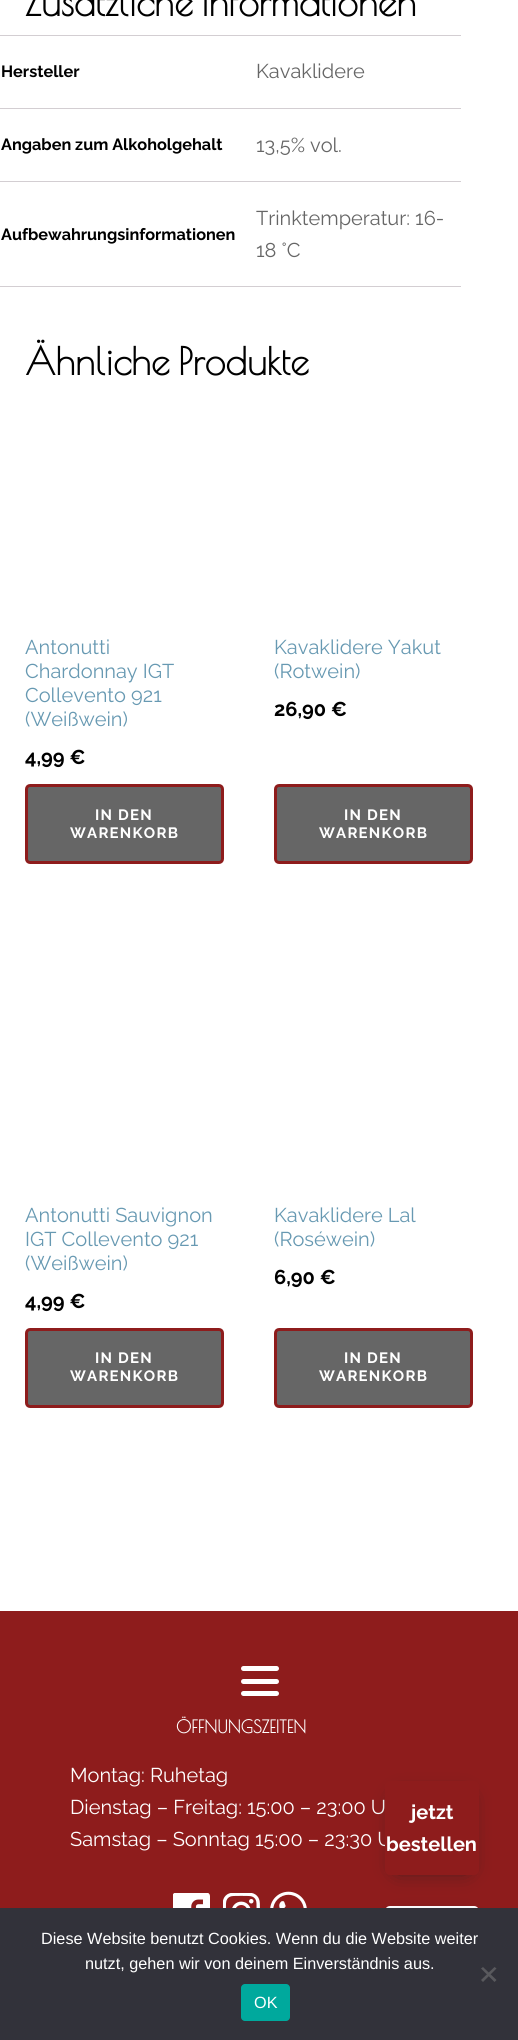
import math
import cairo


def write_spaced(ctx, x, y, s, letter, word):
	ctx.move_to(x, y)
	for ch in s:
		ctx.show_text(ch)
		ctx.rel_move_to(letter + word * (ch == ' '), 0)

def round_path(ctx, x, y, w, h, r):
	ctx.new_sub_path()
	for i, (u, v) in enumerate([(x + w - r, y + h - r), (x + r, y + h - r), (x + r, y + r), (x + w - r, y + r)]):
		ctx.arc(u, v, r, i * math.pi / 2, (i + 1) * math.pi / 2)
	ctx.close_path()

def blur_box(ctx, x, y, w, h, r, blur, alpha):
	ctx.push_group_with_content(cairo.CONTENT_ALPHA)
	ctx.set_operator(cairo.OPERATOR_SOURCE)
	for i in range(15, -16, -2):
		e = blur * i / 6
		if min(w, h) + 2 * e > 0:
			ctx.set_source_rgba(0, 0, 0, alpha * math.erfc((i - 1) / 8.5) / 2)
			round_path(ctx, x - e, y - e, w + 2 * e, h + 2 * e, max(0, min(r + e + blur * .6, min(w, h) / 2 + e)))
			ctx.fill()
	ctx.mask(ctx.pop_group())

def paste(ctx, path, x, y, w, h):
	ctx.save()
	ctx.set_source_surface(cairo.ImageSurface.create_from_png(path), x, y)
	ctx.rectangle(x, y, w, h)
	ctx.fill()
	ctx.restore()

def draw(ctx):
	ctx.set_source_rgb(1, 1, 1)
	ctx.paint()
	ctx.select_font_face('Poiret One', cairo.FONT_SLANT_NORMAL, cairo.FONT_WEIGHT_BOLD)
	ctx.set_font_size(37.5)
	ctx.set_source_rgb(0, 0, 0)
	ctx.move_to(25, 16)
	ctx.show_text('Zusätzliche Informationen')
	ctx.set_source_rgb(0.827, 0.808, 0.824)
	ctx.rectangle(0, 35, 461, 1)
	ctx.fill()
	ctx.select_font_face('Raleway', cairo.FONT_SLANT_NORMAL, cairo.FONT_WEIGHT_BOLD)
	ctx.set_font_size(16.25)
	ctx.set_source_rgb(0, 0, 0)
	ctx.move_to(1, 77)
	ctx.show_text('Hersteller')
	ctx.select_font_face('Raleway')
	ctx.set_font_size(20)
	ctx.set_source_rgb(0.4, 0.4, 0.4)
	ctx.move_to(256, 78)
	ctx.show_text('Kavaklidere')
	ctx.set_source_rgb(0.827, 0.808, 0.824)
	ctx.rectangle(0, 108, 461, 1)
	ctx.fill()
	ctx.select_font_face('Raleway', cairo.FONT_SLANT_NORMAL, cairo.FONT_WEIGHT_BOLD)
	ctx.set_font_size(16.25)
	ctx.set_source_rgb(0, 0, 0)
	ctx.move_to(1, 150)
	ctx.show_text('Angaben zum Alkoholgehalt')
	ctx.select_font_face('Raleway')
	ctx.set_font_size(20)
	ctx.set_source_rgb(0.4, 0.4, 0.4)
	ctx.move_to(256, 152)
	ctx.show_text('13,5% vol.')
	ctx.set_source_rgb(0.827, 0.808, 0.824)
	ctx.rectangle(0, 181, 461, 1)
	ctx.fill()
	ctx.select_font_face('Raleway', cairo.FONT_SLANT_NORMAL, cairo.FONT_WEIGHT_BOLD)
	ctx.set_font_size(16.25)
	ctx.set_source_rgb(0, 0, 0)
	ctx.move_to(1, 240)
	ctx.show_text('Aufbewahrungsinformationen')
	ctx.set_source_rgb(0.827, 0.808, 0.824)
	ctx.rectangle(0, 286, 461, 1)
	ctx.fill()
	ctx.select_font_face('Raleway')
	ctx.set_font_size(20)
	ctx.set_source_rgb(0.4, 0.4, 0.4)
	ctx.move_to(256, 225)
	ctx.show_text('Trinktemperatur: 16-')
	ctx.move_to(256, 257)
	ctx.show_text('18 °C')
	ctx.select_font_face('Poiret One', cairo.FONT_SLANT_NORMAL, cairo.FONT_WEIGHT_BOLD)
	ctx.set_font_size(37.5)
	ctx.set_source_rgb(0, 0, 0)
	ctx.move_to(25, 375)
	ctx.show_text('Ähnliche Produkte')
	ctx.select_font_face('Raleway')
	ctx.set_font_size(20)
	ctx.set_source_rgb(0.404, 0.6, 0.698)
	for x, y, s in [
		(25, 654, 'Antonutti'),
		(25, 678, 'Chardonnay IGT'),
		(25, 702, 'Collevento 921'),
		(25, 726, '(Weißwein)'),
	]:
		ctx.move_to(x, y)
		ctx.show_text(s)
	ctx.select_font_face('Raleway', cairo.FONT_SLANT_NORMAL, cairo.FONT_WEIGHT_BOLD)
	ctx.set_source_rgb(0, 0, 0)
	ctx.move_to(25, 764)
	ctx.show_text('4,99 €')
	ctx.set_source_rgb(0.4, 0.4, 0.4)
	round_path(ctx, 26.5, 785.5, 196, 77, 3.5)
	ctx.fill_preserve()
	ctx.set_source_rgb(0.557, 0.11, 0.11)
	ctx.set_line_width(3)
	ctx.stroke()
	ctx.set_font_size(15)
	ctx.set_source_rgb(1, 1, 1)
	write_spaced(ctx, 95, 820, 'IN DEN', 1.25, 0)
	write_spaced(ctx, 70, 838, 'WARENKORB', 1.25, 0)
	ctx.select_font_face('Raleway')
	ctx.set_font_size(20)
	ctx.set_source_rgb(0.404, 0.6, 0.698)
	ctx.move_to(274, 654)
	ctx.show_text('Kavaklidere Yakut')
	ctx.move_to(274, 678)
	ctx.show_text('(Rotwein)')
	ctx.select_font_face('Raleway', cairo.FONT_SLANT_NORMAL, cairo.FONT_WEIGHT_BOLD)
	ctx.set_source_rgb(0, 0, 0)
	ctx.move_to(274, 716)
	ctx.show_text('26,90 €')
	ctx.set_source_rgb(0.4, 0.4, 0.4)
	round_path(ctx, 275.5, 785.5, 196, 77, 3.5)
	ctx.fill_preserve()
	ctx.set_source_rgb(0.557, 0.11, 0.11)
	ctx.stroke()
	ctx.set_font_size(15)
	ctx.set_source_rgb(1, 1, 1)
	write_spaced(ctx, 344, 820, 'IN DEN', 1.25, 0)
	write_spaced(ctx, 319, 838, 'WARENKORB', 1.25, 0)
	ctx.select_font_face('Raleway')
	ctx.set_font_size(20)
	ctx.set_source_rgb(0.404, 0.6, 0.698)
	for x, y, s in [
		(25, 1222, 'Antonutti Sauvignon'),
		(25, 1246, 'IGT Collevento 921'),
		(25, 1270, '(Weißwein)'),
	]:
		ctx.move_to(x, y)
		ctx.show_text(s)
	ctx.select_font_face('Raleway', cairo.FONT_SLANT_NORMAL, cairo.FONT_WEIGHT_BOLD)
	ctx.set_source_rgb(0, 0, 0)
	ctx.move_to(25, 1308)
	ctx.show_text('4,99 €')
	ctx.set_source_rgb(0.4, 0.4, 0.4)
	round_path(ctx, 26.5, 1329.5, 196, 77, 3.5)
	ctx.fill_preserve()
	ctx.set_source_rgb(0.557, 0.11, 0.11)
	ctx.stroke()
	ctx.set_font_size(15)
	ctx.set_source_rgb(1, 1, 1)
	write_spaced(ctx, 95, 1363, 'IN DEN', 1.25, 0)
	write_spaced(ctx, 70, 1381, 'WARENKORB', 1.25, 0)
	ctx.select_font_face('Raleway')
	ctx.set_font_size(20)
	ctx.set_source_rgb(0.404, 0.6, 0.698)
	ctx.move_to(274, 1222)
	ctx.show_text('Kavaklidere Lal')
	ctx.move_to(274, 1246)
	ctx.show_text('(Roséwein)')
	ctx.select_font_face('Raleway', cairo.FONT_SLANT_NORMAL, cairo.FONT_WEIGHT_BOLD)
	ctx.set_source_rgb(0, 0, 0)
	ctx.move_to(274, 1284)
	ctx.show_text('6,90 €')
	ctx.set_source_rgb(0.4, 0.4, 0.4)
	round_path(ctx, 275.5, 1329.5, 196, 77, 3.5)
	ctx.fill_preserve()
	ctx.set_source_rgb(0.557, 0.11, 0.11)
	ctx.stroke()
	ctx.set_font_size(15)
	ctx.set_source_rgb(1, 1, 1)
	write_spaced(ctx, 344, 1363, 'IN DEN', 1.25, 0)
	write_spaced(ctx, 319, 1381, 'WARENKORB', 1.25, 0)
	ctx.set_source_rgb(0.557, 0.11, 0.11)
	ctx.rectangle(0, 1611, 518, 297)
	ctx.fill()
	ctx.set_source_rgb(1, 1, 1)
	round_path(ctx, 241, 1666, 38, 5, 2.5)
	ctx.fill()
	round_path(ctx, 241, 1679, 38, 5, 2.5)
	ctx.fill()
	round_path(ctx, 241, 1691, 38, 5, 2.5)
	ctx.fill()
	ctx.select_font_face('Poiret One', cairo.FONT_SLANT_NORMAL, cairo.FONT_WEIGHT_BOLD)
	ctx.set_font_size(17.5)
	ctx.move_to(176, 1733)
	ctx.show_text('ÖFFNUNGSZEITEN')
	ctx.select_font_face('Raleway')
	ctx.set_font_size(20)
	for x, y, s in [
		(70, 1782, 'Montag: Ruhetag'),
		(70, 1814, 'Dienstag – Freitag: 15:00 – 23:00 U'),
		(70, 1846, 'Samstag – Sonntag 15:00 – 23:30 U'),
	]:
		ctx.move_to(x, y)
		ctx.show_text(s)
	paste(ctx, 'media/1.png', 173, 1893, 37, 15)
	paste(ctx, 'media/2.png', 223, 1893, 37, 15)
	paste(ctx, 'media/3.png', 270, 1891, 37, 17)
	ctx.set_source_rgb(0.118, 0.118, 0.118)
	blur_box(ctx, 398, 1799, 68, 69, 0, 10.5, 1)
	ctx.set_source_rgb(0.557, 0.11, 0.11)
	round_path(ctx, 385, 1781, 94, 94, 5)
	ctx.fill()
	ctx.select_font_face('Raleway', cairo.FONT_SLANT_NORMAL, cairo.FONT_WEIGHT_BOLD)
	ctx.set_source_rgb(1, 1, 1)
	ctx.move_to(411, 1819)
	ctx.show_text('jetzt')
	ctx.move_to(386, 1851)
	ctx.show_text('bestellen')
	ctx.set_source_rgb(0.118, 0.118, 0.118)
	blur_box(ctx, 398, 1924, 68, 69, 0, 10.5, 1)
	ctx.set_source_rgb(0.976, 0.976, 0.98)
	round_path(ctx, 385, 1906, 94, 94, 5)
	ctx.fill()
	ctx.set_source_rgb(0.196, 0.196, 0.227)
	ctx.rectangle(0, 1908, 518, 132)
	ctx.fill()
	ctx.select_font_face('Liberation Sans')
	ctx.set_font_size(16.25)
	ctx.set_source_rgb(1, 1, 1)
	ctx.move_to(41, 1944)
	ctx.show_text('Diese Website benutzt Cookies. Wenn du die Website weiter')
	ctx.move_to(85, 1969)
	ctx.show_text('nutzt, gehen wir von deinem Einverständnis aus.')
	ctx.set_source_rgb(0.349, 0.349, 0.365)
	ctx.new_path()
	ctx.move_to(494.5, 1967)
	ctx.line_to(496.5, 1968.5)
	ctx.line_to(483, 1982)
	ctx.line_to(481, 1980)
	ctx.close_path()
	ctx.fill()
	ctx.new_path()
	ctx.move_to(481, 1968.5)
	ctx.line_to(483, 1967)
	ctx.line_to(496.5, 1980)
	ctx.line_to(494.5, 1982)
	ctx.close_path()
	ctx.fill()
	ctx.set_source_rgb(0, 0.663, 0.616)
	round_path(ctx, 241, 1984, 49, 37, 4)
	ctx.fill()
	ctx.set_source_rgb(1, 1, 1)
	ctx.move_to(254, 2008)
	ctx.show_text('OK')


surface = cairo.ImageSurface(cairo.FORMAT_RGB24, 518, 2040)
ctx = cairo.Context(surface)
options = cairo.FontOptions()
options.set_hint_metrics(cairo.HINT_METRICS_OFF)
options.set_hint_style(cairo.HINT_STYLE_NONE)
ctx.set_font_options(options)
ctx.set_miter_limit(4)
draw(ctx)
surface.write_to_png('image.png')
